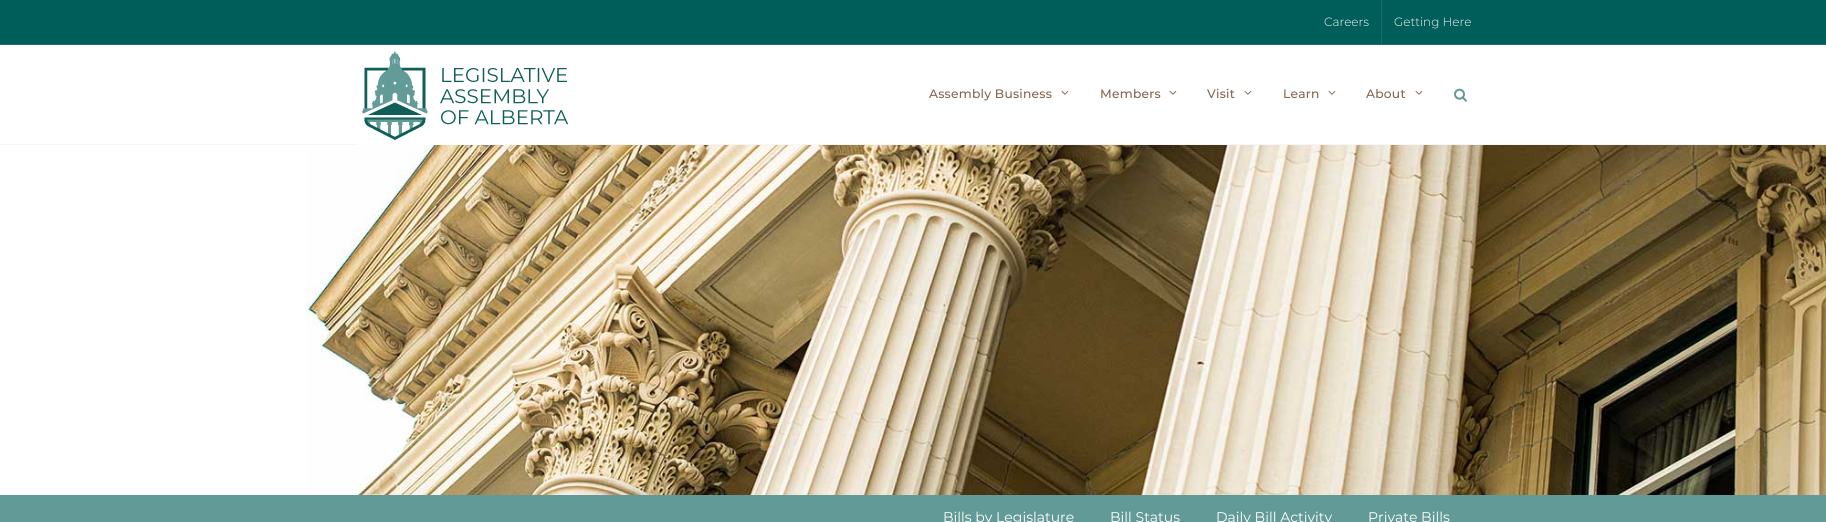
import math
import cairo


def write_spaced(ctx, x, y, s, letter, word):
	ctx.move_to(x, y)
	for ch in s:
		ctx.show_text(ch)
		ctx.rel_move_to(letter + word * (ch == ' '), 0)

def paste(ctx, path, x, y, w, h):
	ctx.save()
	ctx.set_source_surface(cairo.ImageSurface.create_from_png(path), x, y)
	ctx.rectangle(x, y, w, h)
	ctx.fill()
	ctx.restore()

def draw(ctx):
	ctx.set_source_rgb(1, 1, 1)
	ctx.paint()
	ctx.set_source_rgb(0, 0.369, 0.353)
	ctx.rectangle(0, 0, 1826, 44)
	ctx.fill()
	ctx.set_source_rgb(0.102, 0.431, 0.42)
	ctx.rectangle(0, 44, 1826, 1)
	ctx.fill()
	ctx.select_font_face('Montserrat Light')
	ctx.set_font_size(12)
	ctx.set_source_rgb(0.973, 0.973, 0.973)
	ctx.move_to(1324, 26)
	ctx.show_text('Careers')
	ctx.set_source_rgb(0.102, 0.431, 0.42)
	ctx.rectangle(1381, 0, 1, 44)
	ctx.fill()
	ctx.set_source_rgb(0.973, 0.973, 0.973)
	ctx.move_to(1394, 26)
	ctx.show_text('Getting Here')
	ctx.set_source_rgb(0.961, 0.961, 0.961)
	ctx.rectangle(0, 144, 1826, 1)
	ctx.fill()
	paste(ctx, 'media/1.png', 358, 51, 213, 94)
	ctx.select_font_face('Montserrat Medium')
	ctx.set_font_size(12.25)
	ctx.set_source_rgb(0.529, 0.396, 0.294)
	write_spaced(ctx, 929, 98, 'Assembly Business', 0.25, 0)
	paste(ctx, 'media/2.png', 1061, 90, 8, 5)
	write_spaced(ctx, 1100, 98, 'Members', 0.25, 0)
	paste(ctx, 'media/2.png', 1169, 90, 8, 5)
	write_spaced(ctx, 1207, 98, 'Visit', 0.25, 0)
	paste(ctx, 'media/2.png', 1244, 90, 8, 5)
	write_spaced(ctx, 1283, 98, 'Learn', 0.25, 0)
	paste(ctx, 'media/2.png', 1328, 90, 8, 5)
	write_spaced(ctx, 1366, 98, 'About', 0.25, 0)
	paste(ctx, 'media/2.png', 1415, 90, 8, 5)
	paste(ctx, 'media/3.png', 1454, 88, 13, 14)
	paste(ctx, 'media/4.png', 306, 145, 1520, 350)
	ctx.set_source_rgb(0.384, 0.604, 0.592)
	ctx.rectangle(0, 495, 1826, 27)
	ctx.fill()
	ctx.select_font_face('Montserrat')
	ctx.set_font_size(14)
	ctx.set_source_rgb(1, 1, 1)
	for x, y, s in [
		(943, 522, 'Bills by Legislature'),
		(1110, 522, 'Bill Status'),
		(1216, 522, 'Daily Bill Activity'),
		(1368, 522, 'Private Bills'),
	]:
		ctx.move_to(x, y)
		ctx.show_text(s)


surface = cairo.ImageSurface(cairo.FORMAT_RGB24, 1826, 522)
ctx = cairo.Context(surface)
options = cairo.FontOptions()
options.set_hint_metrics(cairo.HINT_METRICS_OFF)
options.set_hint_style(cairo.HINT_STYLE_NONE)
ctx.set_font_options(options)
ctx.set_miter_limit(4)
draw(ctx)
surface.write_to_png('image.png')
